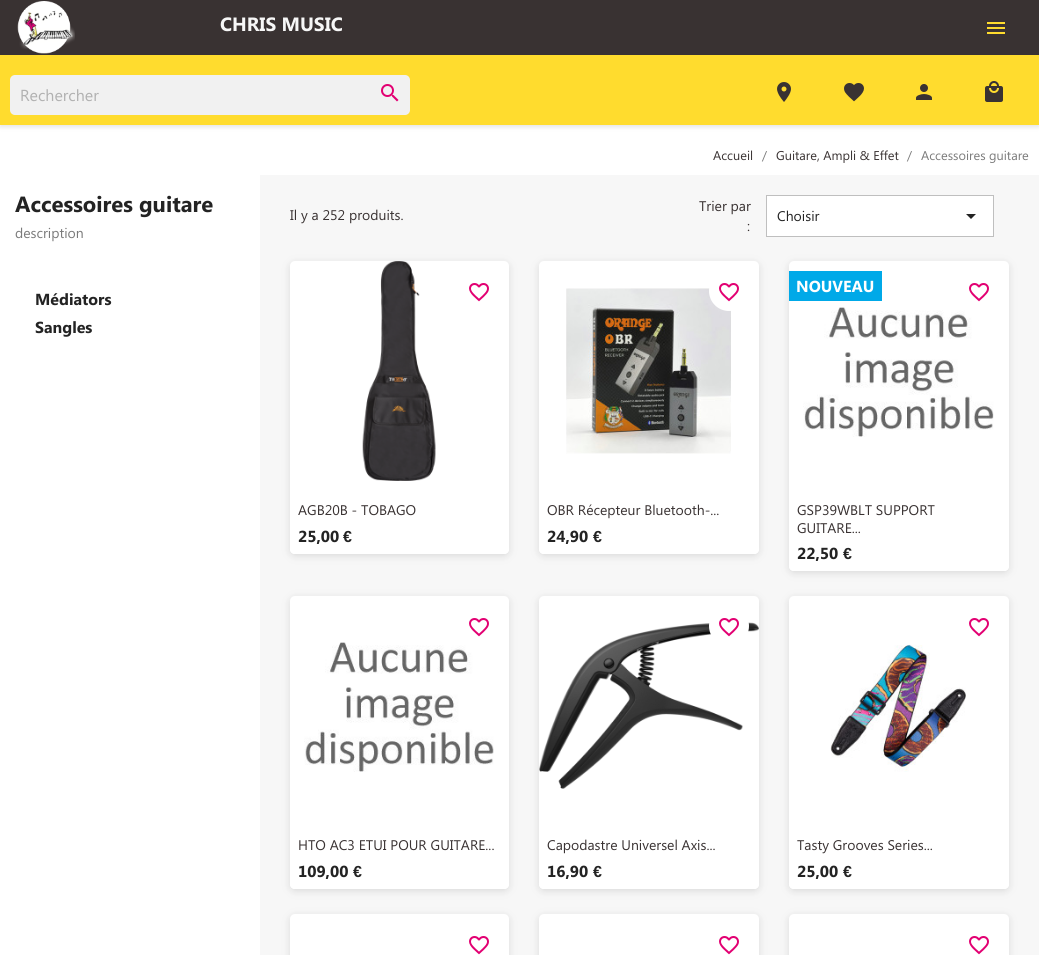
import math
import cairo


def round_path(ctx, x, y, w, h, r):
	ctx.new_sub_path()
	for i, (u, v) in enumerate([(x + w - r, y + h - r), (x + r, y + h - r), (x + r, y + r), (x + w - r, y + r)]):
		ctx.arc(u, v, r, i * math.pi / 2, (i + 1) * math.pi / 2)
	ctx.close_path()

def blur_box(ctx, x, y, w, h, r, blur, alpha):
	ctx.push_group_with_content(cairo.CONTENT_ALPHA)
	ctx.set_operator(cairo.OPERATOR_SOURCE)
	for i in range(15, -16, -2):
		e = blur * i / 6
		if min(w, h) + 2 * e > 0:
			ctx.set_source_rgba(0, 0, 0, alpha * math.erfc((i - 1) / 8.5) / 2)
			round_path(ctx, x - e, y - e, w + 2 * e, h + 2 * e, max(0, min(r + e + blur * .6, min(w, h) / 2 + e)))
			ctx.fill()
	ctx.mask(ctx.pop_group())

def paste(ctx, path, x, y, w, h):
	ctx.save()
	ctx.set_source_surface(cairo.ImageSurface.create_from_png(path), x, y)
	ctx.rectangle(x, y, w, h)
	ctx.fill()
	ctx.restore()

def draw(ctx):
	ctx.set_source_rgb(1, 1, 1)
	ctx.paint()
	ctx.set_source_rgb(0, 0, 0)
	blur_box(ctx, 0, 2, 1039, 125, 0, 2.5, 0.11)
	ctx.set_source_rgb(0.224, 0.196, 0.196)
	ctx.rectangle(0, 0, 1039, 55)
	ctx.fill()
	paste(ctx, 'media/1.png', 17, 1, 58, 53)
	ctx.select_font_face('Segoe UI', cairo.FONT_SLANT_NORMAL, cairo.FONT_WEIGHT_BOLD)
	ctx.set_font_size(19.25)
	ctx.set_source_rgb(0.965, 0.965, 0.965)
	ctx.move_to(220, 31)
	ctx.show_text('CHRIS MUSIC')
	paste(ctx, 'media/2.png', 987, 22, 18, 12)
	ctx.set_source_rgb(1, 0.863, 0.18)
	ctx.rectangle(0, 55, 1039, 70)
	ctx.fill()
	ctx.set_source_rgb(0.945, 0.945, 0.945)
	round_path(ctx, 10, 75, 400, 40, 5)
	ctx.fill()
	ctx.select_font_face('Segoe UI')
	ctx.set_font_size(16)
	ctx.set_source_rgb(0.694, 0.694, 0.694)
	ctx.move_to(20, 101)
	ctx.show_text('Rechercher')
	paste(ctx, 'media/3.png', 381, 84, 18, 18)
	paste(ctx, 'media/4.png', 777, 82, 14, 20)
	paste(ctx, 'media/5.png', 844, 83, 20, 19)
	paste(ctx, 'media/6.png', 916, 84, 16, 16)
	paste(ctx, 'media/7.png', 985, 81, 18, 21)
	ctx.set_font_size(12.75)
	ctx.set_source_rgb(0.224, 0.196, 0.196)
	ctx.move_to(713, 160)
	ctx.show_text('Accueil')
	ctx.set_source_rgb(0.478, 0.478, 0.478)
	ctx.move_to(762, 160)
	ctx.show_text('/')
	ctx.set_source_rgb(0.224, 0.196, 0.196)
	ctx.move_to(776, 160)
	ctx.show_text('Guitare, Ampli & Effet')
	ctx.set_source_rgb(0.478, 0.478, 0.478)
	ctx.move_to(907, 160)
	ctx.show_text('/')
	ctx.move_to(921, 160)
	ctx.show_text('Accessoires guitare')
	ctx.select_font_face('Segoe UI', cairo.FONT_SLANT_NORMAL, cairo.FONT_WEIGHT_BOLD)
	ctx.set_font_size(22)
	ctx.set_source_rgb(0.137, 0.137, 0.137)
	ctx.move_to(15, 212)
	ctx.show_text('Accessoires guitare')
	ctx.select_font_face('Segoe UI')
	ctx.set_font_size(14)
	ctx.set_source_rgb(0.478, 0.478, 0.478)
	ctx.move_to(15, 238)
	ctx.show_text('description')
	ctx.select_font_face('Segoe UI', cairo.FONT_SLANT_NORMAL, cairo.FONT_WEIGHT_BOLD)
	ctx.set_font_size(16)
	ctx.set_source_rgb(0.137, 0.137, 0.137)
	ctx.move_to(35, 305)
	ctx.show_text('Médiators')
	ctx.move_to(35, 333)
	ctx.show_text('Sangles')
	ctx.set_source_rgb(0.965, 0.965, 0.965)
	ctx.rectangle(260, 175, 779, 780)
	ctx.fill()
	ctx.select_font_face('Segoe UI')
	ctx.set_font_size(14)
	ctx.set_source_rgb(0.224, 0.196, 0.196)
	for x, y, s in [
		(290, 220, 'Il y a 252 produits.'),
		(699, 211, 'Trier par'),
		(747, 231, ':'),
	]:
		ctx.move_to(x, y)
		ctx.show_text(s)
	ctx.set_source_rgb(1, 1, 1)
	ctx.rectangle(766.5, 195.5, 227, 41)
	ctx.fill_preserve()
	ctx.set_source_rgb(0.749, 0.749, 0.749)
	ctx.set_line_width(1)
	ctx.stroke()
	ctx.set_source_rgb(0.137, 0.137, 0.137)
	ctx.move_to(777, 221)
	ctx.show_text('Choisir')
	ctx.new_path()
	ctx.move_to(966, 214)
	ctx.line_to(976, 214)
	ctx.line_to(971, 219)
	ctx.close_path()
	ctx.fill()
	ctx.set_source_rgb(0.388, 0.388, 0.388)
	blur_box(ctx, 290, 263, 219, 293, 5, 4, 0.2)
	ctx.set_source_rgb(1, 1, 1)
	round_path(ctx, 290, 261, 219, 293, 5)
	ctx.fill()
	paste(ctx, 'media/8.png', 362, 261, 74, 220)
	paste(ctx, 'media/9.png', 469, 283, 20, 19)
	ctx.new_path()
	ctx.move_to(290, 481)
	ctx.line_to(509, 481)
	ctx.line_to(509, 549)
	ctx.curve_to(509, 552, 507, 554, 504, 554)
	ctx.line_to(295, 554)
	ctx.curve_to(292, 554, 290, 552, 290, 549)
	ctx.close_path()
	ctx.fill()
	ctx.set_source_rgb(0.224, 0.196, 0.196)
	ctx.move_to(298, 515)
	ctx.show_text('AGB20B - TOBAGO')
	ctx.select_font_face('Segoe UI', cairo.FONT_SLANT_NORMAL, cairo.FONT_WEIGHT_BOLD)
	ctx.set_font_size(16)
	ctx.set_source_rgb(0.137, 0.137, 0.137)
	ctx.move_to(298, 542)
	ctx.show_text('25,00')
	ctx.select_font_face('Liberation Sans', cairo.FONT_SLANT_NORMAL, cairo.FONT_WEIGHT_BOLD)
	ctx.move_to(343, 542)
	ctx.show_text('€')
	ctx.set_source_rgb(0.388, 0.388, 0.388)
	blur_box(ctx, 539, 263, 220, 293, 5, 4, 0.2)
	ctx.set_source_rgb(1, 1, 1)
	round_path(ctx, 539, 261, 220, 293, 5)
	ctx.fill()
	paste(ctx, 'media/10.png', 566, 288, 165, 166)
	ctx.arc(729, 291, 20, 0, 2 * math.pi)
	ctx.fill()
	paste(ctx, 'media/9.png', 719, 283, 20, 19)
	ctx.new_path()
	ctx.move_to(539, 481)
	ctx.line_to(759, 481)
	ctx.line_to(759, 549)
	ctx.curve_to(759, 552, 757, 554, 754, 554)
	ctx.line_to(544, 554)
	ctx.curve_to(541, 554, 539, 552, 539, 549)
	ctx.close_path()
	ctx.fill()
	ctx.select_font_face('Segoe UI')
	ctx.set_font_size(14)
	ctx.set_source_rgb(0.224, 0.196, 0.196)
	ctx.move_to(547, 515)
	ctx.show_text('OBR Récepteur Bluetooth-...')
	ctx.select_font_face('Segoe UI', cairo.FONT_SLANT_NORMAL, cairo.FONT_WEIGHT_BOLD)
	ctx.set_font_size(16)
	ctx.set_source_rgb(0.137, 0.137, 0.137)
	ctx.move_to(547, 542)
	ctx.show_text('24,90')
	ctx.select_font_face('Liberation Sans', cairo.FONT_SLANT_NORMAL, cairo.FONT_WEIGHT_BOLD)
	ctx.move_to(593, 542)
	ctx.show_text('€')
	ctx.set_source_rgb(0.388, 0.388, 0.388)
	blur_box(ctx, 789, 263, 220, 310, 5, 4, 0.2)
	ctx.set_source_rgb(1, 1, 1)
	round_path(ctx, 789, 261, 220, 310, 5)
	ctx.fill()
	ctx.set_source_rgb(0, 0.663, 0.91)
	ctx.rectangle(789, 271, 93, 30)
	ctx.fill()
	ctx.select_font_face('Segoe UI', cairo.FONT_SLANT_NORMAL, cairo.FONT_WEIGHT_BOLD)
	ctx.set_source_rgb(1, 1, 1)
	ctx.move_to(796, 292)
	ctx.show_text('NOUVEAU')
	paste(ctx, 'media/9.png', 969, 283, 20, 19)
	paste(ctx, 'media/11.png', 803, 307, 191, 130)
	ctx.new_path()
	ctx.move_to(789, 481)
	ctx.line_to(1009, 481)
	ctx.line_to(1009, 566)
	ctx.curve_to(1009, 569, 1007, 571, 1004, 571)
	ctx.line_to(794, 571)
	ctx.curve_to(791, 571, 789, 569, 789, 566)
	ctx.close_path()
	ctx.fill()
	ctx.select_font_face('Segoe UI')
	ctx.set_font_size(14)
	ctx.set_source_rgb(0.224, 0.196, 0.196)
	ctx.move_to(797, 515)
	ctx.show_text('GSP39WBLT SUPPORT')
	ctx.move_to(797, 533)
	ctx.show_text('GUITARE...')
	ctx.select_font_face('Segoe UI', cairo.FONT_SLANT_NORMAL, cairo.FONT_WEIGHT_BOLD)
	ctx.set_font_size(16)
	ctx.set_source_rgb(0.137, 0.137, 0.137)
	ctx.move_to(797, 559)
	ctx.show_text('22,50')
	ctx.select_font_face('Liberation Sans', cairo.FONT_SLANT_NORMAL, cairo.FONT_WEIGHT_BOLD)
	ctx.move_to(843, 559)
	ctx.show_text('€')
	ctx.set_source_rgb(0.388, 0.388, 0.388)
	blur_box(ctx, 290, 598, 219, 293, 5, 4, 0.2)
	ctx.set_source_rgb(1, 1, 1)
	round_path(ctx, 290, 596, 219, 293, 5)
	ctx.fill()
	paste(ctx, 'media/9.png', 469, 618, 20, 19)
	paste(ctx, 'media/12.png', 304, 642, 190, 130)
	ctx.new_path()
	ctx.move_to(290, 816)
	ctx.line_to(509, 816)
	ctx.line_to(509, 884)
	ctx.curve_to(509, 887, 507, 889, 504, 889)
	ctx.line_to(295, 889)
	ctx.curve_to(292, 889, 290, 887, 290, 884)
	ctx.close_path()
	ctx.fill()
	ctx.select_font_face('Segoe UI')
	ctx.set_font_size(14)
	ctx.set_source_rgb(0.224, 0.196, 0.196)
	ctx.move_to(298, 850)
	ctx.show_text('HTO AC3 ETUI POUR GUITARE...')
	ctx.select_font_face('Segoe UI', cairo.FONT_SLANT_NORMAL, cairo.FONT_WEIGHT_BOLD)
	ctx.set_font_size(16)
	ctx.set_source_rgb(0.137, 0.137, 0.137)
	ctx.move_to(298, 877)
	ctx.show_text('109,00')
	ctx.select_font_face('Liberation Sans', cairo.FONT_SLANT_NORMAL, cairo.FONT_WEIGHT_BOLD)
	ctx.move_to(353, 877)
	ctx.show_text('€')
	ctx.set_source_rgb(0.388, 0.388, 0.388)
	blur_box(ctx, 539, 598, 220, 293, 5, 4, 0.2)
	ctx.set_source_rgb(1, 1, 1)
	round_path(ctx, 539, 596, 220, 293, 5)
	ctx.fill()
	paste(ctx, 'media/13.png', 539, 622, 220, 167)
	ctx.arc(729, 626, 20, 0, 2 * math.pi)
	ctx.fill()
	paste(ctx, 'media/9.png', 719, 618, 20, 19)
	ctx.new_path()
	ctx.move_to(539, 816)
	ctx.line_to(759, 816)
	ctx.line_to(759, 884)
	ctx.curve_to(759, 887, 757, 889, 754, 889)
	ctx.line_to(544, 889)
	ctx.curve_to(541, 889, 539, 887, 539, 884)
	ctx.close_path()
	ctx.fill()
	ctx.select_font_face('Segoe UI')
	ctx.set_font_size(14)
	ctx.set_source_rgb(0.224, 0.196, 0.196)
	ctx.move_to(547, 850)
	ctx.show_text('Capodastre Universel Axis...')
	ctx.select_font_face('Segoe UI', cairo.FONT_SLANT_NORMAL, cairo.FONT_WEIGHT_BOLD)
	ctx.set_font_size(16)
	ctx.set_source_rgb(0.137, 0.137, 0.137)
	ctx.move_to(547, 877)
	ctx.show_text('16,90')
	ctx.select_font_face('Liberation Sans', cairo.FONT_SLANT_NORMAL, cairo.FONT_WEIGHT_BOLD)
	ctx.move_to(593, 877)
	ctx.show_text('€')
	ctx.set_source_rgb(0.388, 0.388, 0.388)
	blur_box(ctx, 789, 598, 220, 293, 5, 4, 0.2)
	ctx.set_source_rgb(1, 1, 1)
	round_path(ctx, 789, 596, 220, 293, 5)
	ctx.fill()
	paste(ctx, 'media/9.png', 969, 618, 20, 19)
	paste(ctx, 'media/14.png', 830, 644, 136, 128)
	ctx.new_path()
	ctx.move_to(789, 816)
	ctx.line_to(1009, 816)
	ctx.line_to(1009, 884)
	ctx.curve_to(1009, 887, 1007, 889, 1004, 889)
	ctx.line_to(794, 889)
	ctx.curve_to(791, 889, 789, 887, 789, 884)
	ctx.close_path()
	ctx.fill()
	ctx.select_font_face('Segoe UI')
	ctx.set_font_size(14)
	ctx.set_source_rgb(0.224, 0.196, 0.196)
	ctx.move_to(797, 850)
	ctx.show_text('Tasty Grooves Series...')
	ctx.select_font_face('Segoe UI', cairo.FONT_SLANT_NORMAL, cairo.FONT_WEIGHT_BOLD)
	ctx.set_font_size(16)
	ctx.set_source_rgb(0.137, 0.137, 0.137)
	ctx.move_to(797, 877)
	ctx.show_text('25,00')
	ctx.select_font_face('Liberation Sans', cairo.FONT_SLANT_NORMAL, cairo.FONT_WEIGHT_BOLD)
	ctx.move_to(843, 877)
	ctx.show_text('€')
	ctx.set_source_rgb(0.388, 0.388, 0.388)
	blur_box(ctx, 290, 916, 219, 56, 5, 4, 0.2)
	ctx.set_source_rgb(1, 1, 1)
	round_path(ctx, 290, 914, 219, 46, 5)
	ctx.fill()
	paste(ctx, 'media/9.png', 469, 936, 20, 19)
	ctx.set_source_rgb(0.388, 0.388, 0.388)
	blur_box(ctx, 539, 916, 220, 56, 5, 4, 0.2)
	ctx.set_source_rgb(1, 1, 1)
	round_path(ctx, 539, 914, 220, 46, 5)
	ctx.fill()
	paste(ctx, 'media/9.png', 719, 936, 20, 19)
	ctx.set_source_rgb(0.388, 0.388, 0.388)
	blur_box(ctx, 789, 916, 220, 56, 5, 4, 0.2)
	ctx.set_source_rgb(1, 1, 1)
	round_path(ctx, 789, 914, 220, 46, 5)
	ctx.fill()
	paste(ctx, 'media/9.png', 969, 936, 20, 19)


surface = cairo.ImageSurface(cairo.FORMAT_RGB24, 1039, 955)
ctx = cairo.Context(surface)
options = cairo.FontOptions()
options.set_hint_metrics(cairo.HINT_METRICS_OFF)
options.set_hint_style(cairo.HINT_STYLE_NONE)
ctx.set_font_options(options)
ctx.set_miter_limit(4)
draw(ctx)
surface.write_to_png('image.png')
